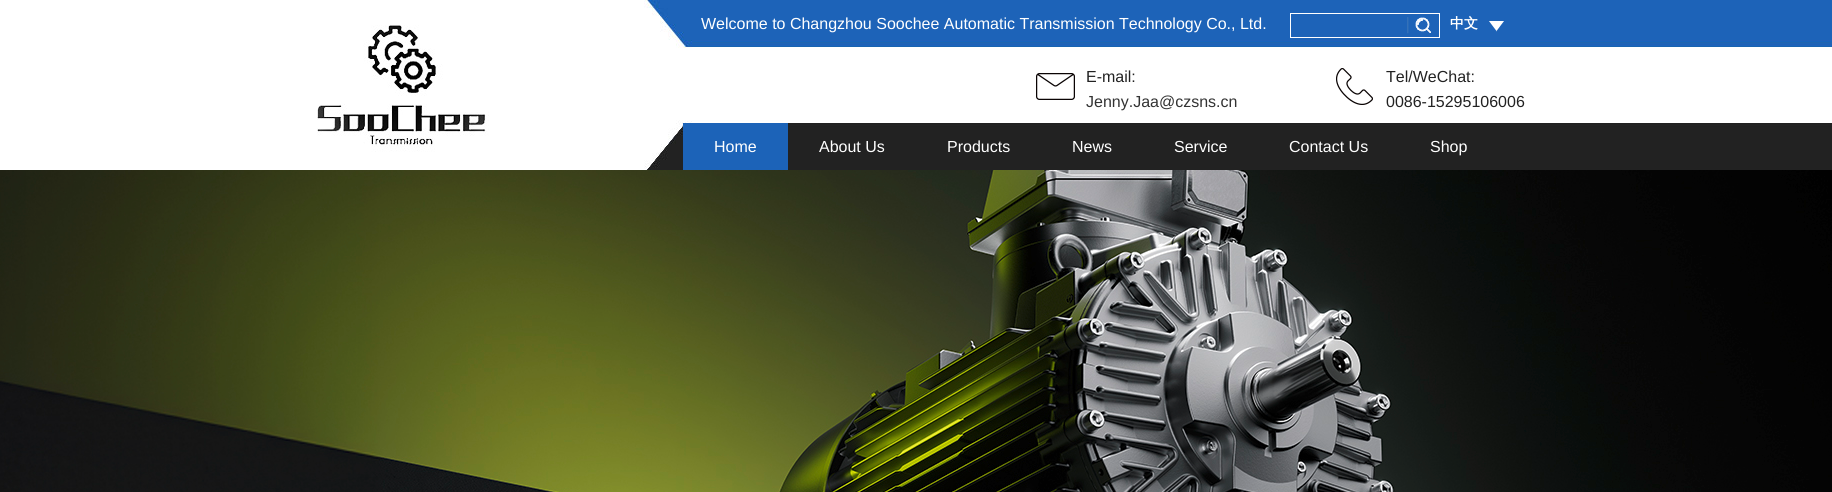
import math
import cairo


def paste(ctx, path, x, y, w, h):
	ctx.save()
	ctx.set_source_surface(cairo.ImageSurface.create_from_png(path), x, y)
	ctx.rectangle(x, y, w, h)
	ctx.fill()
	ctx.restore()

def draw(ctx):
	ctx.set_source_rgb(1, 1, 1)
	ctx.paint()
	paste(ctx, 'media/1.png', 644, 0, 1188, 170)
	paste(ctx, 'media/2.png', 317, 25, 172, 127)
	ctx.select_font_face('Liberation Sans')
	ctx.set_font_size(16)
	ctx.set_source_rgb(1, 1, 1)
	ctx.move_to(701, 29)
	ctx.show_text('Welcome to Changzhou Soochee Automatic Transmission Technology Co., Ltd.')
	ctx.rectangle(1290.5, 13.5, 149, 24)
	ctx.set_line_width(1)
	ctx.stroke()
	paste(ctx, 'media/3.png', 1407, 17, 2, 17)
	paste(ctx, 'media/4.png', 1415, 17, 16, 16)
	ctx.select_font_face('WenQuanYi Zen Hei', cairo.FONT_SLANT_NORMAL, cairo.FONT_WEIGHT_BOLD)
	ctx.set_font_size(14)
	ctx.move_to(1450, 28)
	ctx.show_text('中文')
	paste(ctx, 'media/5.png', 1489, 21, 15, 11)
	paste(ctx, 'media/6.png', 1036, 73, 39, 27)
	ctx.select_font_face('Liberation Sans')
	ctx.set_font_size(16)
	ctx.set_source_rgb(0.133, 0.133, 0.133)
	ctx.move_to(1086, 82)
	ctx.show_text('E-mail:')
	ctx.set_source_rgb(0.2, 0.2, 0.2)
	ctx.move_to(1086, 107)
	ctx.show_text('Jenny.Jaa@czsns.cn')
	paste(ctx, 'media/7.png', 1336, 68, 37, 37)
	ctx.set_source_rgb(0.133, 0.133, 0.133)
	ctx.move_to(1386, 82)
	ctx.show_text('Tel/WeChat:')
	ctx.move_to(1386, 107)
	ctx.show_text('0086-15295106006')
	ctx.set_source_rgb(0.11, 0.388, 0.722)
	ctx.rectangle(683, 123, 105, 47)
	ctx.fill()
	ctx.set_source_rgb(1, 1, 1)
	for x, y, s in [
		(714, 152, 'Home'),
		(819, 152, 'About Us'),
		(947, 152, 'Products'),
		(1072, 152, 'News'),
		(1174, 152, 'Service'),
		(1289, 152, 'Contact Us'),
		(1430, 152, 'Shop'),
	]:
		ctx.move_to(x, y)
		ctx.show_text(s)
	paste(ctx, 'media/8.png', 0, 170, 1832, 322)


surface = cairo.ImageSurface(cairo.FORMAT_RGB24, 1832, 492)
ctx = cairo.Context(surface)
options = cairo.FontOptions()
options.set_hint_metrics(cairo.HINT_METRICS_OFF)
options.set_hint_style(cairo.HINT_STYLE_NONE)
ctx.set_font_options(options)
ctx.set_miter_limit(4)
draw(ctx)
surface.write_to_png('image.png')
